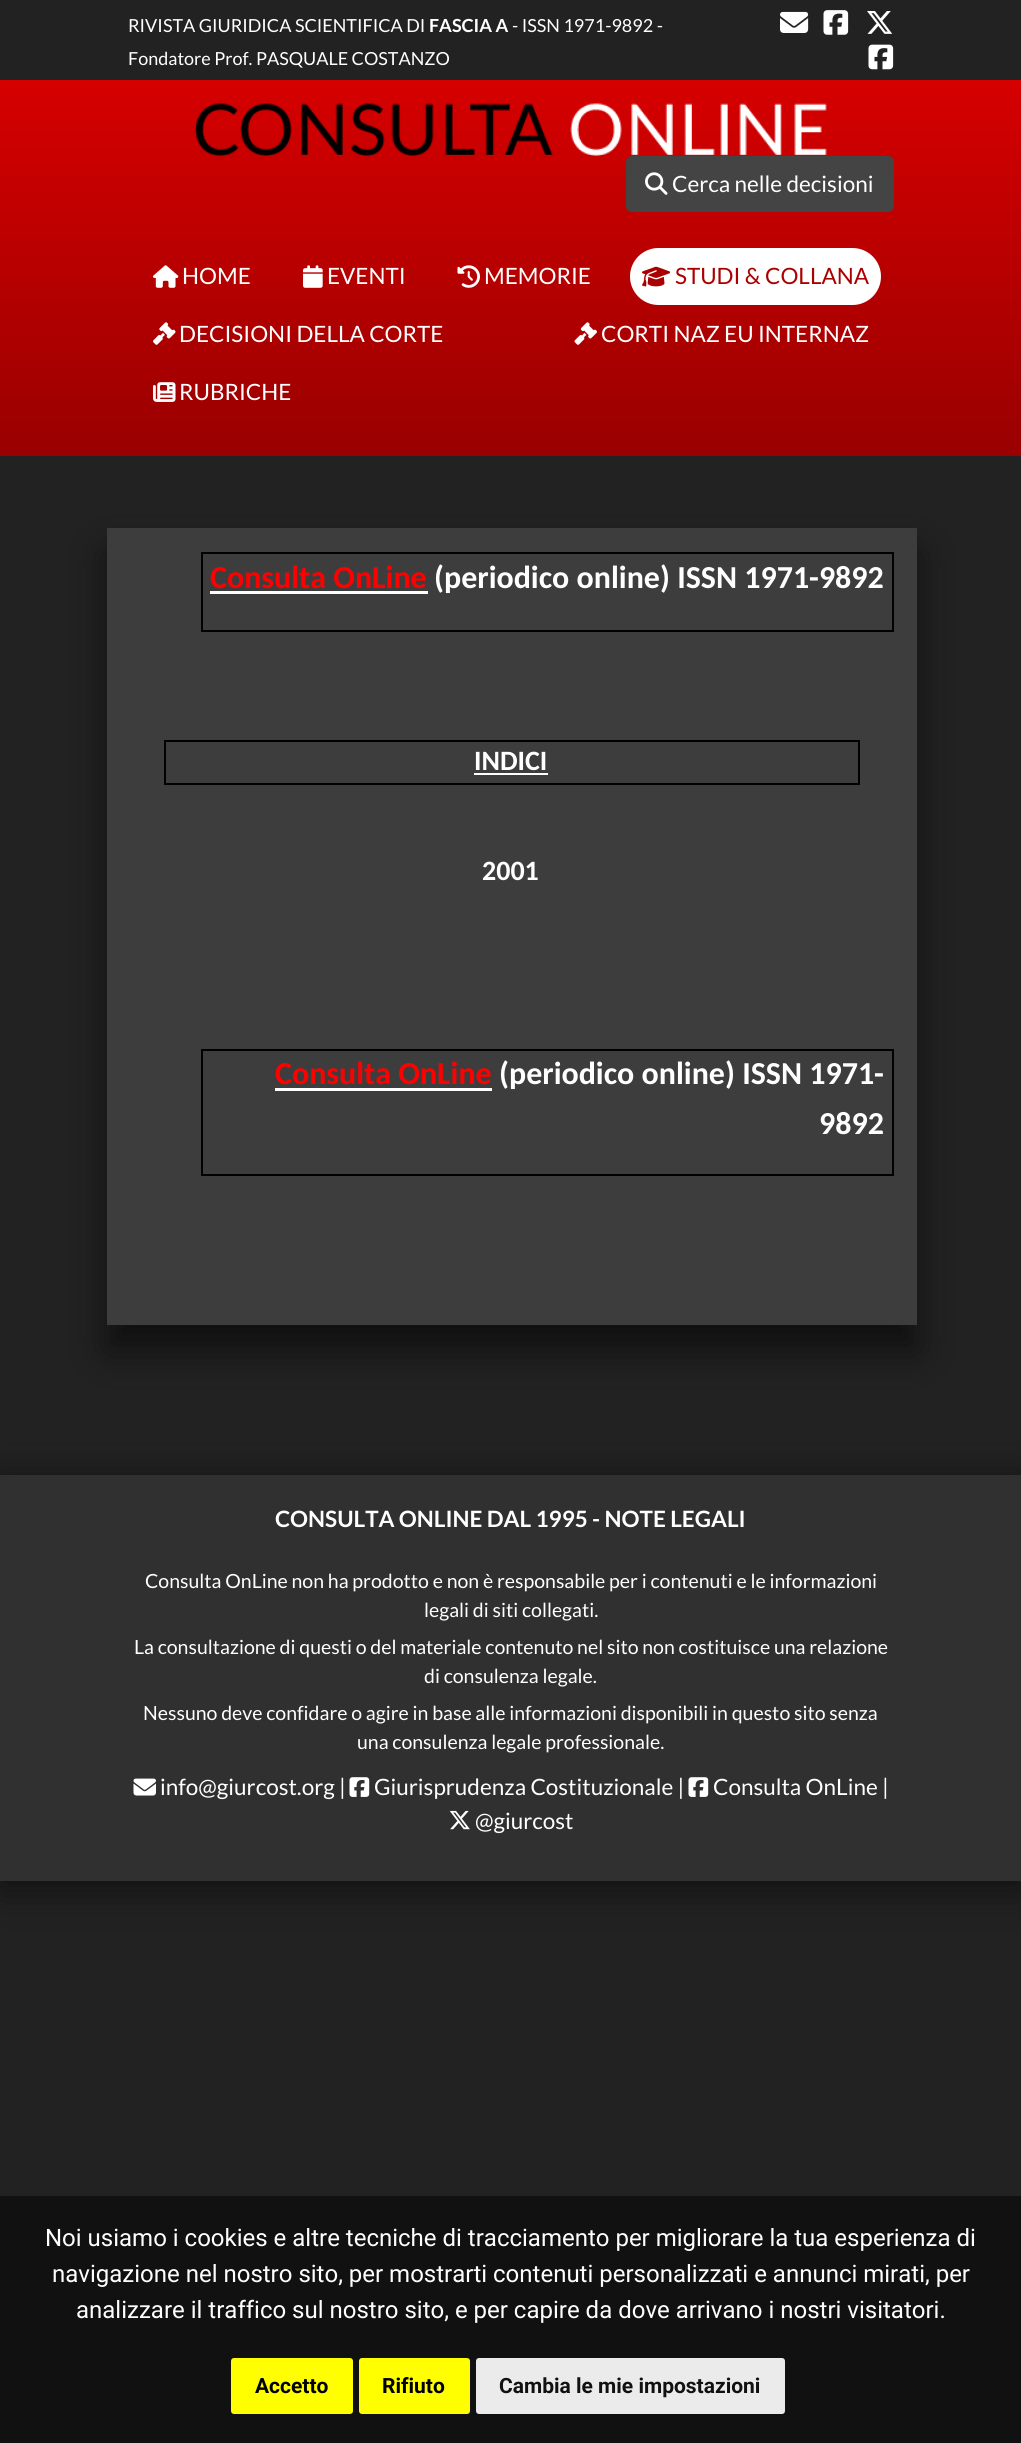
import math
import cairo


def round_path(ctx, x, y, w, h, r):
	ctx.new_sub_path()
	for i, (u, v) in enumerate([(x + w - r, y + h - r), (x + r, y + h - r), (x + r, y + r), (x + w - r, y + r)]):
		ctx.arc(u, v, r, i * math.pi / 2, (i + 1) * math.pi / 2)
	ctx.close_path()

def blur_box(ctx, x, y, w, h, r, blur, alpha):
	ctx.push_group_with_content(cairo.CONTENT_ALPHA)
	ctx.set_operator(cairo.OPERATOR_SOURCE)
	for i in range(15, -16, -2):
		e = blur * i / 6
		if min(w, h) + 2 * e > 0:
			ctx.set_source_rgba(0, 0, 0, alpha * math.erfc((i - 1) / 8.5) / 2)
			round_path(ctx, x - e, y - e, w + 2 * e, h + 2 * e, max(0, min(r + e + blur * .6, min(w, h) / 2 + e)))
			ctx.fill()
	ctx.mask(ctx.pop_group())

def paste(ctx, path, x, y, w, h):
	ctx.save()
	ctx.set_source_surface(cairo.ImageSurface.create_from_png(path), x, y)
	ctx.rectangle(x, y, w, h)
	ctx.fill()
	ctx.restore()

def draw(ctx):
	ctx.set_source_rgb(0.133, 0.133, 0.133)
	ctx.paint()
	ctx.select_font_face('Lato')
	ctx.set_font_size(18)
	ctx.set_source_rgb(1, 1, 1)
	ctx.move_to(128, 32)
	ctx.show_text('RIVISTA GIURIDICA SCIENTIFICA DI')
	ctx.select_font_face('Lato', cairo.FONT_SLANT_NORMAL, cairo.FONT_WEIGHT_BOLD)
	ctx.move_to(429, 32)
	ctx.show_text('FASCIA A')
	ctx.select_font_face('Lato')
	ctx.move_to(512, 32)
	ctx.show_text('- ISSN 1971-9892 -')
	ctx.move_to(128, 65)
	ctx.show_text('Fondatore Prof. PASQUALE COSTANZO')
	paste(ctx, 'media/1.png', 780, 11, 29, 22)
	paste(ctx, 'media/2.png', 823, 10, 26, 25)
	paste(ctx, 'media/3.png', 867, 11, 26, 23)
	paste(ctx, 'media/4.png', 868, 44, 26, 26)
	gradient = cairo.LinearGradient(511, 79, 511, 456)
	gradient.add_color_stop_rgba(0, 0.839, 0, 0, 1)
	gradient.add_color_stop_rgba(1, 0.6, 0, 0, 1)
	ctx.set_source(gradient)
	ctx.rectangle(0, 80, 1021, 376)
	ctx.fill()
	paste(ctx, 'media/5.png', 195, 103, 632, 53)
	ctx.set_source_rgb(0.267, 0.267, 0.267)
	round_path(ctx, 627, 157, 266, 54, 5)
	ctx.fill_preserve()
	ctx.stroke()
	paste(ctx, 'media/6.png', 645, 172, 23, 23)
	ctx.set_font_size(22.5)
	ctx.set_source_rgb(1, 1, 1)
	ctx.move_to(672, 192)
	ctx.show_text('Cerca nelle decisioni')
	paste(ctx, 'media/7.png', 153, 265, 26, 23)
	ctx.move_to(182, 284)
	ctx.show_text('HOME')
	paste(ctx, 'media/8.png', 303, 265, 20, 23)
	ctx.move_to(327, 284)
	ctx.show_text('EVENTI')
	paste(ctx, 'media/9.png', 457, 265, 23, 23)
	ctx.move_to(484, 284)
	ctx.show_text('MEMORIE')
	round_path(ctx, 630, 248, 251, 57, 28.5)
	ctx.fill()
	paste(ctx, 'media/10.png', 642, 266, 29, 21)
	ctx.set_source_rgb(0.671, 0, 0)
	ctx.move_to(675, 284)
	ctx.show_text('STUDI & COLLANA')
	paste(ctx, 'media/11.png', 153, 322, 23, 23)
	ctx.set_source_rgb(1, 1, 1)
	ctx.move_to(179, 342)
	ctx.show_text('DECISIONI DELLA CORTE')
	paste(ctx, 'media/12.png', 574, 322, 23, 23)
	ctx.move_to(601, 342)
	ctx.show_text('CORTI NAZ EU INTERNAZ')
	paste(ctx, 'media/13.png', 153, 382, 23, 20)
	ctx.move_to(179, 400)
	ctx.show_text('RUBRICHE')
	ctx.set_source_rgb(0.059, 0.059, 0.059)
	blur_box(ctx, 107, 554, 810, 796, 0, 19, 1)
	ctx.set_source_rgb(0.239, 0.239, 0.239)
	ctx.rectangle(107, 528, 810, 797)
	ctx.fill()
	ctx.rectangle(202, 553, 691, 78)
	ctx.set_source_rgb(0, 0, 0)
	ctx.stroke()
	ctx.select_font_face('Carlito', cairo.FONT_SLANT_NORMAL, cairo.FONT_WEIGHT_BOLD)
	ctx.set_font_size(32)
	ctx.set_source_rgb(1, 0, 0)
	ctx.move_to(210, 588)
	ctx.show_text('Consulta OnLine')
	ctx.set_source_rgb(1, 1, 1)
	ctx.rectangle(210, 591, 218, 3)
	ctx.fill()
	ctx.move_to(434, 588)
	ctx.show_text('(periodico online) ISSN 1971-9892')
	ctx.set_source_rgb(0, 0, 0)
	ctx.rectangle(164, 740, 696, 2)
	ctx.rectangle(858, 740, 2, 45)
	ctx.rectangle(164, 783, 696, 2)
	ctx.rectangle(164, 740, 2, 45)
	ctx.fill()
	ctx.set_font_size(28)
	ctx.set_source_rgb(1, 1, 1)
	ctx.move_to(474, 770)
	ctx.show_text('INDICI')
	ctx.rectangle(474, 773, 74, 2)
	ctx.fill()
	ctx.move_to(482, 880)
	ctx.show_text('2001')
	ctx.rectangle(202, 1050, 691, 125)
	ctx.set_source_rgb(0, 0, 0)
	ctx.stroke()
	ctx.set_font_size(32)
	ctx.set_source_rgb(1, 0, 0)
	ctx.move_to(275, 1084)
	ctx.show_text('Consulta OnLine')
	ctx.set_source_rgb(1, 1, 1)
	ctx.rectangle(275, 1088, 217, 3)
	ctx.fill()
	ctx.move_to(499, 1084)
	ctx.show_text('(periodico online) ISSN 1971-')
	ctx.move_to(819, 1134)
	ctx.show_text('9892')
	ctx.set_source_rgb(0.059, 0.059, 0.059)
	blur_box(ctx, 0, 1482, 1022, 407, 0, 19, 1)
	ctx.set_source_rgb(0.188, 0.188, 0.188)
	ctx.rectangle(0, 1475, 1021, 406)
	ctx.fill()
	ctx.select_font_face('Lato', cairo.FONT_SLANT_NORMAL, cairo.FONT_WEIGHT_BOLD)
	ctx.set_font_size(22.5)
	ctx.set_source_rgb(1, 1, 1)
	ctx.move_to(275, 1527)
	ctx.show_text('CONSULTA ONLINE DAL 1995 - NOTE LEGALI')
	ctx.select_font_face('Lato')
	ctx.set_font_size(19.5)
	for x, y, s in [
		(145, 1588, 'Consulta OnLine non ha prodotto e non è responsabile per i contenuti e le informazioni'),
		(424, 1617, 'legali di siti collegati.'),
		(134, 1654, 'La consultazione di questi o del materiale contenuto nel sito non costituisce una relazione'),
		(424, 1683, 'di consulenza legale.'),
		(143, 1720, 'Nessuno deve confidare o agire in base alle informazioni disponibili in questo sito senza'),
		(357, 1749, 'una consulenza legale professionale.'),
	]:
		ctx.move_to(x, y)
		ctx.show_text(s)
	paste(ctx, 'media/14.png', 133, 1778, 23, 18)
	ctx.set_font_size(22.5)
	ctx.move_to(160, 1795)
	ctx.show_text('info@giurcost.org |')
	paste(ctx, 'media/15.png', 349, 1777, 21, 20)
	ctx.move_to(374, 1795)
	ctx.show_text('Giurisprudenza Costituzionale |')
	paste(ctx, 'media/15.png', 688, 1777, 21, 20)
	ctx.move_to(713, 1795)
	ctx.show_text('Consulta OnLine |')
	paste(ctx, 'media/16.png', 449, 1810, 21, 20)
	ctx.move_to(475, 1829)
	ctx.show_text('@giurcost')
	ctx.set_source_rgb(0.067, 0.067, 0.067)
	ctx.rectangle(0, 2196, 1021, 247)
	ctx.fill()
	ctx.select_font_face('Roboto')
	ctx.set_font_size(24)
	ctx.set_source_rgb(1, 1, 1)
	for x, y, s in [
		(45, 2246, 'Noi usiamo i cookies e altre tecniche di tracciamento per migliorare la tua esperienza di'),
		(52, 2282, 'navigazione nel nostro sito, per mostrarti contenuti personalizzati e annunci mirati, per'),
		(76, 2318, 'analizzare il traffico sul nostro sito, e per capire da dove arrivano i nostri visitatori.'),
	]:
		ctx.move_to(x, y)
		ctx.show_text(s)
	ctx.set_source_rgb(1, 1, 0)
	round_path(ctx, 231, 2358, 122, 56, 3)
	ctx.fill()
	ctx.select_font_face('Roboto', cairo.FONT_SLANT_NORMAL, cairo.FONT_WEIGHT_BOLD)
	ctx.set_font_size(21)
	ctx.set_source_rgb(0, 0, 0)
	ctx.move_to(255, 2393)
	ctx.show_text('Accetto')
	ctx.set_source_rgb(1, 1, 0)
	round_path(ctx, 359, 2358, 111, 56, 3)
	ctx.fill()
	ctx.set_source_rgb(0, 0, 0)
	ctx.move_to(382, 2393)
	ctx.show_text('Rifiuto')
	ctx.set_source_rgb(0.918, 0.918, 0.918)
	round_path(ctx, 476, 2358, 309, 56, 3)
	ctx.fill()
	ctx.set_source_rgb(0.067, 0.067, 0.067)
	ctx.move_to(499, 2393)
	ctx.show_text('Cambia le mie impostazioni')


surface = cairo.ImageSurface(cairo.FORMAT_RGB24, 1021, 2443)
ctx = cairo.Context(surface)
options = cairo.FontOptions()
options.set_hint_metrics(cairo.HINT_METRICS_OFF)
options.set_hint_style(cairo.HINT_STYLE_NONE)
ctx.set_font_options(options)
ctx.set_miter_limit(4)
draw(ctx)
surface.write_to_png('image.png')
